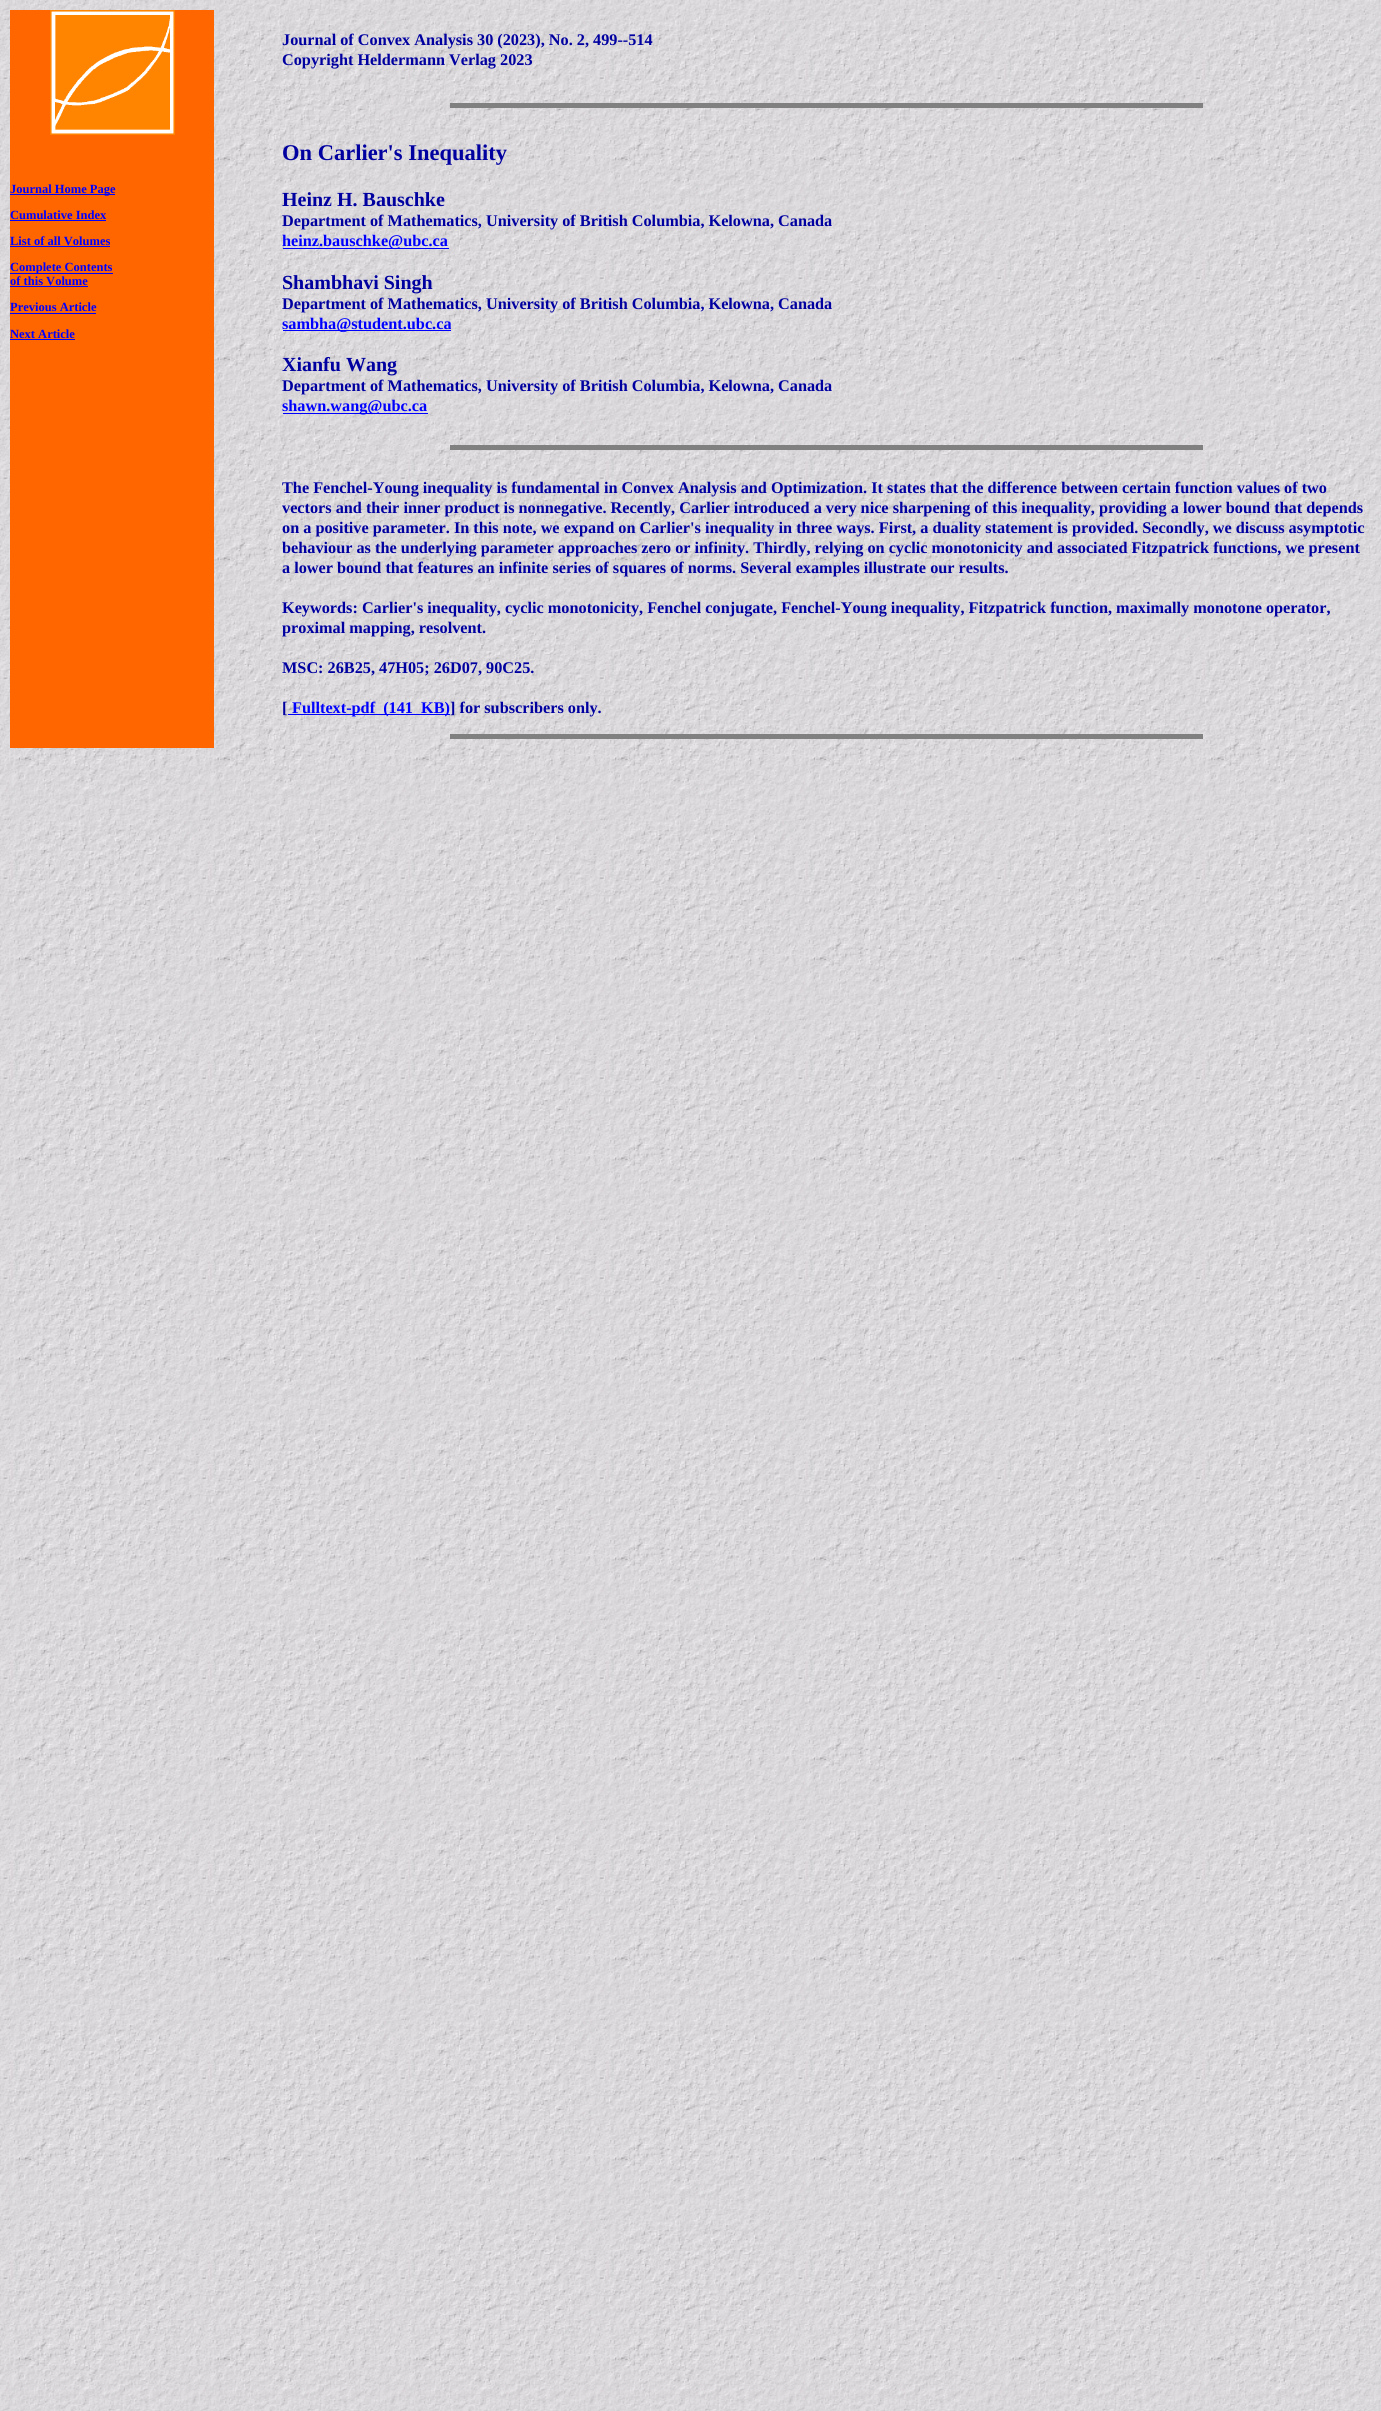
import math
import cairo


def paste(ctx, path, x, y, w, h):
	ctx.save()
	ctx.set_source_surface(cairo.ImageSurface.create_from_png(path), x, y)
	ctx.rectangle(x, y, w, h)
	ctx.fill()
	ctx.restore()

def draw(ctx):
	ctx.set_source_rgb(1, 1, 1)
	ctx.paint()
	paste(ctx, 'media/1.png', 0, 0, 1381, 2411)
	ctx.set_source_rgb(1, 0.4, 0)
	ctx.rectangle(10, 10, 204, 738)
	ctx.fill()
	paste(ctx, 'media/2.png', 50, 10, 125, 125)
	ctx.set_source_rgb(0, 0, 1)
	ctx.rectangle(10, 194, 105, 1)
	ctx.fill()
	ctx.select_font_face('Liberation Serif', cairo.FONT_SLANT_NORMAL, cairo.FONT_WEIGHT_BOLD)
	ctx.set_font_size(12.5)
	ctx.move_to(10, 193)
	ctx.show_text('Journal Home Page')
	ctx.move_to(10, 219)
	ctx.show_text('Cumulative Index')
	ctx.rectangle(10, 220, 96, 1)
	ctx.fill()
	ctx.move_to(10, 245)
	ctx.show_text('List of all Volumes')
	ctx.rectangle(10, 246, 100, 1)
	ctx.fill()
	ctx.rectangle(10, 273, 103, 1)
	ctx.fill()
	ctx.move_to(10, 271)
	ctx.show_text('Complete Contents')
	ctx.move_to(10, 285)
	ctx.show_text('of this Volume')
	ctx.rectangle(10, 286, 78, 1)
	ctx.fill()
	ctx.move_to(10, 311)
	ctx.show_text('Previous Article')
	ctx.rectangle(10, 313, 86, 1)
	ctx.fill()
	ctx.move_to(10, 338)
	ctx.show_text('Next Article')
	ctx.rectangle(10, 339, 65, 1)
	ctx.fill()
	ctx.set_font_size(16.25)
	ctx.set_source_rgb(0, 0, 0.627)
	ctx.move_to(282, 45)
	ctx.show_text('Journal of Convex Analysis 30 (2023), No. 2, 499--514')
	ctx.move_to(282, 65)
	ctx.show_text('Copyright Heldermann Verlag 2023')
	ctx.set_source_rgb(0.502, 0.502, 0.502)
	ctx.rectangle(450, 103, 753, 5)
	ctx.fill()
	ctx.set_font_size(22.5)
	ctx.set_source_rgb(0, 0, 0.627)
	ctx.move_to(282, 160)
	ctx.show_text('On Carlier\'s Inequality')
	ctx.set_font_size(20)
	ctx.move_to(282, 206)
	ctx.show_text('Heinz H. Bauschke')
	ctx.set_font_size(16.25)
	ctx.move_to(282, 226)
	ctx.show_text('Department of Mathematics, University of British Columbia, Kelowna, Canada')
	ctx.set_source_rgb(0, 0, 1)
	ctx.rectangle(283, 248, 166, 1)
	ctx.fill()
	ctx.move_to(282, 246)
	ctx.show_text('heinz.bauschke@ubc.ca')
	ctx.set_font_size(20)
	ctx.set_source_rgb(0, 0, 0.627)
	ctx.move_to(282, 289)
	ctx.show_text('Shambhavi Singh')
	ctx.set_font_size(16.25)
	ctx.move_to(282, 309)
	ctx.show_text('Department of Mathematics, University of British Columbia, Kelowna, Canada')
	ctx.set_source_rgb(0, 0, 1)
	ctx.rectangle(283, 330, 168, 1)
	ctx.fill()
	ctx.move_to(282, 329)
	ctx.show_text('sambha@student.ubc.ca')
	ctx.set_font_size(20)
	ctx.set_source_rgb(0, 0, 0.627)
	ctx.move_to(282, 371)
	ctx.show_text('Xianfu Wang')
	ctx.set_font_size(16.25)
	ctx.move_to(282, 391)
	ctx.show_text('Department of Mathematics, University of British Columbia, Kelowna, Canada')
	ctx.set_source_rgb(0, 0, 1)
	ctx.rectangle(283, 413, 145, 1)
	ctx.fill()
	ctx.move_to(282, 411)
	ctx.show_text('shawn.wang@ubc.ca')
	ctx.set_source_rgb(0.502, 0.502, 0.502)
	ctx.rectangle(450, 445, 753, 5)
	ctx.fill()
	ctx.set_source_rgb(0, 0, 0.627)
	for x, y, s in [
		(282, 493, 'The Fenchel-Young inequality is fundamental in Convex Analysis and Optimization. It states that the difference between certain function values of two'),
		(282, 513, 'vectors and their inner product is nonnegative. Recently, Carlier introduced a very nice sharpening of this inequality, providing a lower bound that depends'),
		(282, 533, 'on a positive parameter. In this note, we expand on Carlier\'s inequality in three ways. First, a duality statement is provided. Secondly, we discuss asymptotic'),
		(282, 553, 'behaviour as the underlying parameter approaches zero or infinity. Thirdly, relying on cyclic monotonicity and associated Fitzpatrick functions, we present'),
		(282, 573, 'a lower bound that features an infinite series of squares of norms. Several examples illustrate our results.'),
		(282, 613, 'Keywords: Carlier\'s inequality, cyclic monotonicity, Fenchel conjugate, Fenchel-Young inequality, Fitzpatrick function, maximally monotone operator,'),
		(282, 633, 'proximal mapping, resolvent.'),
		(282, 673, 'MSC: 26B25, 47H05; 26D07, 90C25.'),
		(282, 713, '['),
	]:
		ctx.move_to(x, y)
		ctx.show_text(s)
	ctx.set_source_rgb(0, 0, 1)
	ctx.rectangle(288, 714, 162, 1)
	ctx.fill()
	ctx.move_to(292, 713)
	ctx.show_text('Fulltext-pdf  (141  KB)')
	ctx.set_source_rgb(0, 0, 0.627)
	ctx.move_to(450, 713)
	ctx.show_text('] for subscribers only.')
	ctx.set_source_rgb(0.502, 0.502, 0.502)
	ctx.rectangle(450, 734, 753, 5)
	ctx.fill()


surface = cairo.ImageSurface(cairo.FORMAT_RGB24, 1381, 2411)
ctx = cairo.Context(surface)
options = cairo.FontOptions()
options.set_hint_metrics(cairo.HINT_METRICS_OFF)
options.set_hint_style(cairo.HINT_STYLE_NONE)
ctx.set_font_options(options)
ctx.set_miter_limit(4)
draw(ctx)
surface.write_to_png('image.png')
